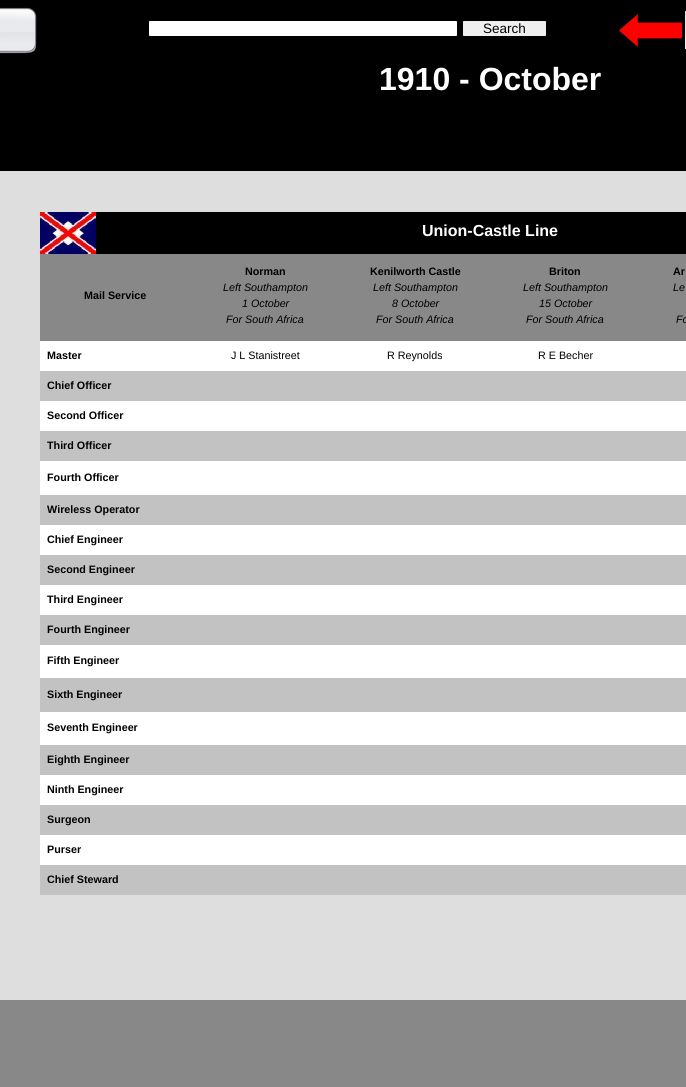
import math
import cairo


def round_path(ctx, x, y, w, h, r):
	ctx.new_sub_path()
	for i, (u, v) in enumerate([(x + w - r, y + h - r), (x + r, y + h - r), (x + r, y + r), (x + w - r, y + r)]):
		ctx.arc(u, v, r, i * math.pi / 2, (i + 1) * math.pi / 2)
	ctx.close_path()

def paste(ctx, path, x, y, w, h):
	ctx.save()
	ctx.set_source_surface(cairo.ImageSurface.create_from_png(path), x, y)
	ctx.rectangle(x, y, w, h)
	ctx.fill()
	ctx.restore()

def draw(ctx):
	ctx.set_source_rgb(0.533, 0.533, 0.533)
	ctx.paint()
	ctx.set_source_rgb(0.871, 0.871, 0.871)
	ctx.rectangle(0, 171, 686, 829)
	ctx.fill()
	ctx.set_source_rgb(0, 0, 0)
	ctx.rectangle(0, 0, 686, 171)
	ctx.fill()
	paste(ctx, 'media/1.png', 0, 7, 37, 47)
	ctx.set_source_rgb(1, 1, 1)
	round_path(ctx, 148.5, 20.5, 309, 16, 1.5)
	ctx.fill_preserve()
	ctx.set_source_rgb(0, 0, 0)
	ctx.set_line_width(1)
	ctx.stroke()
	ctx.set_source_rgb(0.937, 0.937, 0.937)
	round_path(ctx, 462.5, 20.5, 84, 16, 1.5)
	ctx.fill_preserve()
	ctx.set_source_rgb(0, 0, 0)
	ctx.stroke()
	ctx.select_font_face('Liberation Sans')
	ctx.set_font_size(13.5)
	ctx.move_to(483, 33)
	ctx.show_text('Search')
	paste(ctx, 'media/2.png', 619, 14, 63, 33)
	paste(ctx, 'media/3.png', 685, 11, 1, 38)
	ctx.select_font_face('Liberation Sans', cairo.FONT_SLANT_NORMAL, cairo.FONT_WEIGHT_BOLD)
	ctx.set_font_size(32)
	ctx.set_source_rgb(1, 1, 1)
	ctx.move_to(379, 90)
	ctx.show_text('1910 - October')
	paste(ctx, 'media/4.png', 40, 212, 56, 42)
	ctx.set_source_rgb(0, 0, 0)
	ctx.rectangle(96, 212, 590, 42)
	ctx.fill()
	ctx.set_font_size(16)
	ctx.set_source_rgb(1, 1, 1)
	ctx.move_to(422, 236)
	ctx.show_text('Union-Castle Line')
	ctx.set_source_rgb(0.533, 0.533, 0.533)
	ctx.rectangle(40, 254, 646, 87)
	ctx.fill()
	ctx.set_font_size(10.75)
	ctx.set_source_rgb(0, 0, 0)
	ctx.move_to(84, 299)
	ctx.show_text('Mail Service')
	ctx.move_to(245, 275)
	ctx.show_text('Norman')
	ctx.select_font_face('Liberation Sans', cairo.FONT_SLANT_ITALIC)
	for x, y, s in [
		(223, 291, 'Left Southampton'),
		(242, 307, '1 October'),
		(226, 323, 'For South Africa'),
	]:
		ctx.move_to(x, y)
		ctx.show_text(s)
	ctx.select_font_face('Liberation Sans', cairo.FONT_SLANT_NORMAL, cairo.FONT_WEIGHT_BOLD)
	ctx.move_to(370, 275)
	ctx.show_text('Kenilworth Castle')
	ctx.select_font_face('Liberation Sans', cairo.FONT_SLANT_ITALIC)
	for x, y, s in [
		(373, 291, 'Left Southampton'),
		(392, 307, '8 October'),
		(376, 323, 'For South Africa'),
	]:
		ctx.move_to(x, y)
		ctx.show_text(s)
	ctx.select_font_face('Liberation Sans', cairo.FONT_SLANT_NORMAL, cairo.FONT_WEIGHT_BOLD)
	ctx.move_to(549, 275)
	ctx.show_text('Briton')
	ctx.select_font_face('Liberation Sans', cairo.FONT_SLANT_ITALIC)
	for x, y, s in [
		(523, 291, 'Left Southampton'),
		(539, 307, '15 October'),
		(526, 323, 'For South Africa'),
	]:
		ctx.move_to(x, y)
		ctx.show_text(s)
	ctx.select_font_face('Liberation Sans', cairo.FONT_SLANT_NORMAL, cairo.FONT_WEIGHT_BOLD)
	ctx.move_to(673, 275)
	ctx.show_text('Ar')
	ctx.select_font_face('Liberation Sans', cairo.FONT_SLANT_ITALIC)
	ctx.move_to(673, 291)
	ctx.show_text('Le')
	ctx.move_to(676, 323)
	ctx.show_text('Fo')
	ctx.set_source_rgb(1, 1, 1)
	ctx.rectangle(40, 341, 646, 30)
	ctx.fill()
	ctx.select_font_face('Liberation Sans', cairo.FONT_SLANT_NORMAL, cairo.FONT_WEIGHT_BOLD)
	ctx.set_source_rgb(0, 0, 0)
	ctx.move_to(47, 359)
	ctx.show_text('Master')
	ctx.select_font_face('Liberation Sans')
	for x, y, s in [
		(231, 359, 'J L Stanistreet'),
		(387, 359, 'R Reynolds'),
		(538, 359, 'R E Becher'),
	]:
		ctx.move_to(x, y)
		ctx.show_text(s)
	ctx.set_source_rgb(0.761, 0.761, 0.761)
	ctx.rectangle(40, 371, 646, 30)
	ctx.fill()
	ctx.select_font_face('Liberation Sans', cairo.FONT_SLANT_NORMAL, cairo.FONT_WEIGHT_BOLD)
	ctx.set_source_rgb(0, 0, 0)
	ctx.move_to(47, 389)
	ctx.show_text('Chief Officer')
	ctx.set_source_rgb(1, 1, 1)
	ctx.rectangle(40, 401, 646, 30)
	ctx.fill()
	ctx.set_source_rgb(0, 0, 0)
	ctx.move_to(47, 419)
	ctx.show_text('Second Officer')
	ctx.set_source_rgb(0.761, 0.761, 0.761)
	ctx.rectangle(40, 431, 646, 30)
	ctx.fill()
	ctx.set_source_rgb(0, 0, 0)
	ctx.move_to(47, 449)
	ctx.show_text('Third Officer')
	ctx.set_source_rgb(1, 1, 1)
	ctx.rectangle(40, 461, 646, 34)
	ctx.fill()
	ctx.set_source_rgb(0, 0, 0)
	ctx.move_to(47, 481)
	ctx.show_text('Fourth Officer')
	ctx.set_source_rgb(0.761, 0.761, 0.761)
	ctx.rectangle(40, 495, 646, 30)
	ctx.fill()
	ctx.set_source_rgb(0, 0, 0)
	ctx.move_to(47, 513)
	ctx.show_text('Wireless Operator')
	ctx.set_source_rgb(1, 1, 1)
	ctx.rectangle(40, 525, 646, 30)
	ctx.fill()
	ctx.set_source_rgb(0, 0, 0)
	ctx.move_to(47, 543)
	ctx.show_text('Chief Engineer')
	ctx.set_source_rgb(0.761, 0.761, 0.761)
	ctx.rectangle(40, 555, 646, 30)
	ctx.fill()
	ctx.set_source_rgb(0, 0, 0)
	ctx.move_to(47, 573)
	ctx.show_text('Second Engineer')
	ctx.set_source_rgb(1, 1, 1)
	ctx.rectangle(40, 585, 646, 30)
	ctx.fill()
	ctx.set_source_rgb(0, 0, 0)
	ctx.move_to(47, 603)
	ctx.show_text('Third Engineer')
	ctx.set_source_rgb(0.761, 0.761, 0.761)
	ctx.rectangle(40, 615, 646, 30)
	ctx.fill()
	ctx.set_source_rgb(0, 0, 0)
	ctx.move_to(47, 633)
	ctx.show_text('Fourth Engineer')
	ctx.set_source_rgb(1, 1, 1)
	ctx.rectangle(40, 645, 646, 33)
	ctx.fill()
	ctx.set_source_rgb(0, 0, 0)
	ctx.move_to(47, 664)
	ctx.show_text('Fifth Engineer')
	ctx.set_source_rgb(0.761, 0.761, 0.761)
	ctx.rectangle(40, 678, 646, 34)
	ctx.fill()
	ctx.set_source_rgb(0, 0, 0)
	ctx.move_to(47, 698)
	ctx.show_text('Sixth Engineer')
	ctx.set_source_rgb(1, 1, 1)
	ctx.rectangle(40, 712, 646, 33)
	ctx.fill()
	ctx.set_source_rgb(0, 0, 0)
	ctx.move_to(47, 731)
	ctx.show_text('Seventh Engineer')
	ctx.set_source_rgb(0.761, 0.761, 0.761)
	ctx.rectangle(40, 745, 646, 30)
	ctx.fill()
	ctx.set_source_rgb(0, 0, 0)
	ctx.move_to(47, 763)
	ctx.show_text('Eighth Engineer')
	ctx.set_source_rgb(1, 1, 1)
	ctx.rectangle(40, 775, 646, 30)
	ctx.fill()
	ctx.set_source_rgb(0, 0, 0)
	ctx.move_to(47, 793)
	ctx.show_text('Ninth Engineer')
	ctx.set_source_rgb(0.761, 0.761, 0.761)
	ctx.rectangle(40, 805, 646, 30)
	ctx.fill()
	ctx.set_source_rgb(0, 0, 0)
	ctx.move_to(47, 823)
	ctx.show_text('Surgeon')
	ctx.set_source_rgb(1, 1, 1)
	ctx.rectangle(40, 835, 646, 30)
	ctx.fill()
	ctx.set_source_rgb(0, 0, 0)
	ctx.move_to(47, 853)
	ctx.show_text('Purser')
	ctx.set_source_rgb(0.761, 0.761, 0.761)
	ctx.rectangle(40, 865, 646, 30)
	ctx.fill()
	ctx.set_source_rgb(0, 0, 0)
	ctx.move_to(47, 883)
	ctx.show_text('Chief Steward')


surface = cairo.ImageSurface(cairo.FORMAT_RGB24, 686, 1087)
ctx = cairo.Context(surface)
options = cairo.FontOptions()
options.set_hint_metrics(cairo.HINT_METRICS_OFF)
options.set_hint_style(cairo.HINT_STYLE_NONE)
ctx.set_font_options(options)
ctx.set_miter_limit(4)
draw(ctx)
surface.write_to_png('image.png')
